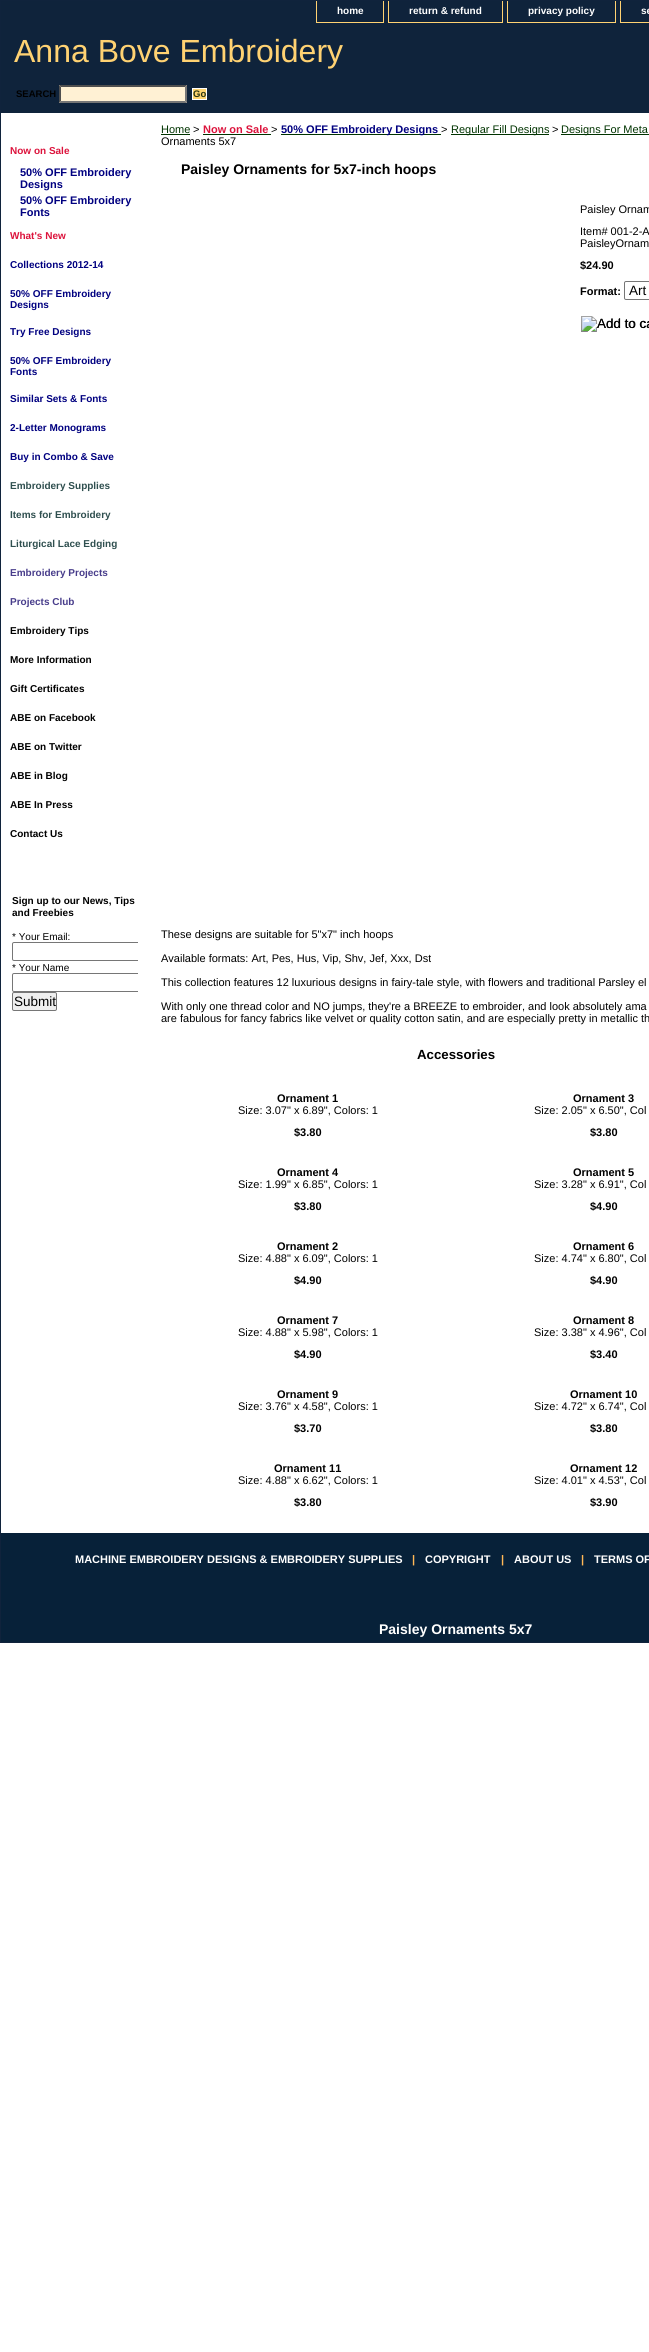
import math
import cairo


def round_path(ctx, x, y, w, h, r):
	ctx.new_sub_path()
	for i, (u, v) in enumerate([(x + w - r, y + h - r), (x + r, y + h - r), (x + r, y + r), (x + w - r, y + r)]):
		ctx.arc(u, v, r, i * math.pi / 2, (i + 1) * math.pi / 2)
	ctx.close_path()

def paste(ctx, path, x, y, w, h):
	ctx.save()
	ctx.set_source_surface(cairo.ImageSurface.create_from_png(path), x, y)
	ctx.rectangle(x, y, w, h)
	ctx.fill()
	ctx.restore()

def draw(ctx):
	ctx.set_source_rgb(1, 1, 1)
	ctx.paint()
	ctx.rectangle(0.5, 0.5, 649, 1642)
	ctx.set_source_rgb(0.063, 0.137, 0.235)
	ctx.set_line_width(1)
	ctx.stroke()
	ctx.set_source_rgb(0.059, 0.137, 0.231)
	ctx.rectangle(1, 1, 648, 112)
	ctx.fill()
	ctx.set_source_rgb(1, 0.824, 0.447)
	ctx.rectangle(383, 1, 1, 22)
	ctx.rectangle(316, 22, 68, 1)
	ctx.rectangle(316, 1, 1, 22)
	ctx.fill()
	ctx.select_font_face('Liberation Sans', cairo.FONT_SLANT_NORMAL, cairo.FONT_WEIGHT_BOLD)
	ctx.set_font_size(10)
	ctx.set_source_rgb(1, 1, 1)
	ctx.move_to(337, 14)
	ctx.show_text('home')
	ctx.set_source_rgb(1, 0.824, 0.447)
	ctx.rectangle(502, 1, 1, 22)
	ctx.rectangle(388, 22, 115, 1)
	ctx.rectangle(388, 1, 1, 22)
	ctx.fill()
	ctx.set_source_rgb(1, 1, 1)
	ctx.move_to(409, 14)
	ctx.show_text('return & refund')
	ctx.set_source_rgb(1, 0.824, 0.447)
	ctx.rectangle(615, 1, 1, 22)
	ctx.rectangle(507, 22, 109, 1)
	ctx.rectangle(507, 1, 1, 22)
	ctx.fill()
	ctx.set_source_rgb(1, 1, 1)
	ctx.move_to(528, 14)
	ctx.show_text('privacy policy')
	ctx.set_source_rgb(1, 0.824, 0.447)
	ctx.rectangle(620, 22, 29, 1)
	ctx.fill()
	ctx.rectangle(620, 1, 1, 22)
	ctx.fill()
	ctx.set_source_rgb(1, 1, 1)
	ctx.move_to(641, 14)
	ctx.show_text('se')
	ctx.select_font_face('Liberation Sans')
	ctx.set_font_size(32)
	ctx.set_source_rgb(1, 0.824, 0.447)
	ctx.move_to(14, 62)
	ctx.show_text('Anna Bove Embroidery')
	ctx.select_font_face('Liberation Sans', cairo.FONT_SLANT_NORMAL, cairo.FONT_WEIGHT_BOLD)
	ctx.set_font_size(9.5)
	ctx.set_source_rgb(0, 0, 0)
	ctx.move_to(16, 97)
	ctx.show_text('SEARCH')
	ctx.set_source_rgb(1, 0.945, 0.831)
	ctx.rectangle(59, 85, 128, 18)
	ctx.fill()
	ctx.set_source_rgb(0.31, 0.31, 0.31)
	ctx.new_path()
	ctx.move_to(59, 85)
	ctx.line_to(187, 85)
	ctx.line_to(185, 87)
	ctx.line_to(61, 87)
	ctx.close_path()
	ctx.fill()
	ctx.set_source_rgb(0.463, 0.463, 0.463)
	ctx.new_path()
	ctx.move_to(187, 85)
	ctx.line_to(187, 103)
	ctx.line_to(185, 101)
	ctx.line_to(185, 87)
	ctx.close_path()
	ctx.fill()
	ctx.new_path()
	ctx.move_to(187, 103)
	ctx.line_to(59, 103)
	ctx.line_to(61, 101)
	ctx.line_to(185, 101)
	ctx.close_path()
	ctx.fill()
	ctx.set_source_rgb(0.31, 0.31, 0.31)
	ctx.new_path()
	ctx.move_to(59, 103)
	ctx.line_to(59, 85)
	ctx.line_to(61, 87)
	ctx.line_to(61, 101)
	ctx.close_path()
	ctx.fill()
	ctx.set_source_rgb(0.996, 0.835, 0.439)
	ctx.rectangle(192.5, 88.5, 14, 11)
	ctx.fill_preserve()
	ctx.set_source_rgb(1, 1, 1)
	ctx.stroke()
	ctx.set_source_rgb(0.161, 0.204, 0.075)
	ctx.move_to(193, 97)
	ctx.show_text('Go')
	ctx.set_font_size(10)
	ctx.set_source_rgb(0.863, 0.078, 0.235)
	ctx.move_to(10, 154)
	ctx.show_text('Now on Sale')
	ctx.set_font_size(11)
	ctx.set_source_rgb(0, 0, 0.502)
	for x, y, s in [
		(20, 176, '50% OFF Embroidery'),
		(20, 188, 'Designs'),
		(20, 204, '50% OFF Embroidery'),
		(20, 216, 'Fonts'),
	]:
		ctx.move_to(x, y)
		ctx.show_text(s)
	ctx.set_font_size(10)
	ctx.set_source_rgb(0.863, 0.078, 0.235)
	ctx.move_to(10, 239)
	ctx.show_text('What\'s New')
	ctx.set_source_rgb(0, 0, 0.502)
	for x, y, s in [
		(10, 268, 'Collections 2012-14'),
		(10, 297, '50% OFF Embroidery'),
		(10, 308, 'Designs'),
		(10, 335, 'Try Free Designs'),
		(10, 364, '50% OFF Embroidery'),
		(10, 375, 'Fonts'),
		(10, 402, 'Similar Sets & Fonts'),
		(10, 431, '2-Letter Monograms'),
		(10, 460, 'Buy in Combo & Save'),
	]:
		ctx.move_to(x, y)
		ctx.show_text(s)
	ctx.set_source_rgb(0.184, 0.31, 0.31)
	for x, y, s in [
		(10, 489, 'Embroidery Supplies'),
		(10, 518, 'Items for Embroidery'),
		(10, 547, 'Liturgical Lace Edging'),
	]:
		ctx.move_to(x, y)
		ctx.show_text(s)
	ctx.set_source_rgb(0.282, 0.239, 0.545)
	ctx.move_to(10, 576)
	ctx.show_text('Embroidery Projects')
	ctx.move_to(10, 605)
	ctx.show_text('Projects Club')
	ctx.set_source_rgb(0, 0, 0)
	for x, y, s in [
		(10, 634, 'Embroidery Tips'),
		(10, 663, 'More Information'),
		(10, 692, 'Gift Certificates'),
		(10, 721, 'ABE on Facebook'),
		(10, 750, 'ABE on Twitter'),
		(10, 779, 'ABE in Blog'),
		(10, 808, 'ABE In Press'),
		(10, 837, 'Contact Us'),
		(12, 904, 'Sign up to our News, Tips'),
		(12, 916, 'and Freebies'),
	]:
		ctx.move_to(x, y)
		ctx.show_text(s)
	ctx.select_font_face('Liberation Sans')
	ctx.move_to(12, 940)
	ctx.show_text('* Your Email:')
	ctx.save()
	ctx.rectangle(1, 113, 137, 933)
	ctx.clip()
	round_path(ctx, 12.5, 942.5, 132, 18, 1.5)
	ctx.set_source_rgb(0.463, 0.463, 0.463)
	ctx.stroke()
	ctx.restore()
	ctx.move_to(12, 971)
	ctx.show_text('* Your Name')
	ctx.save()
	ctx.rectangle(1, 113, 137, 933)
	ctx.clip()
	round_path(ctx, 12.5, 973.5, 132, 18, 1.5)
	ctx.set_source_rgb(0.463, 0.463, 0.463)
	ctx.stroke()
	ctx.restore()
	ctx.set_source_rgb(0.937, 0.937, 0.937)
	round_path(ctx, 12.5, 992.5, 44, 18, 1.5)
	ctx.fill_preserve()
	ctx.set_source_rgb(0.463, 0.463, 0.463)
	ctx.stroke()
	ctx.set_font_size(13.5)
	ctx.set_source_rgb(0, 0, 0)
	ctx.move_to(14, 1006)
	ctx.show_text('Submit')
	ctx.set_font_size(11)
	ctx.set_source_rgb(0, 0.2, 0)
	ctx.move_to(161, 133)
	ctx.show_text('Home')
	ctx.rectangle(161, 134, 29, 1)
	ctx.fill()
	ctx.set_source_rgb(0, 0, 0)
	ctx.move_to(193, 133)
	ctx.show_text('>')
	ctx.select_font_face('Liberation Sans', cairo.FONT_SLANT_NORMAL, cairo.FONT_WEIGHT_BOLD)
	ctx.set_source_rgb(0.863, 0.078, 0.235)
	ctx.move_to(203, 133)
	ctx.show_text('Now on Sale')
	ctx.set_source_rgb(0, 0.2, 0)
	ctx.rectangle(203, 134, 68, 1)
	ctx.fill()
	ctx.select_font_face('Liberation Sans')
	ctx.set_source_rgb(0, 0, 0)
	ctx.move_to(271, 133)
	ctx.show_text('>')
	ctx.set_source_rgb(0, 0.2, 0)
	ctx.rectangle(281, 134, 160, 1)
	ctx.fill()
	ctx.select_font_face('Liberation Sans', cairo.FONT_SLANT_NORMAL, cairo.FONT_WEIGHT_BOLD)
	ctx.set_source_rgb(0, 0, 0.502)
	ctx.move_to(281, 133)
	ctx.show_text('50% OFF Embroidery Designs')
	ctx.select_font_face('Liberation Sans')
	ctx.set_source_rgb(0, 0, 0)
	ctx.move_to(441, 133)
	ctx.show_text('>')
	ctx.set_source_rgb(0, 0.2, 0)
	ctx.rectangle(451, 134, 98, 1)
	ctx.fill()
	ctx.move_to(451, 133)
	ctx.show_text('Regular Fill Designs')
	ctx.set_source_rgb(0, 0, 0)
	ctx.move_to(552, 133)
	ctx.show_text('>')
	ctx.set_source_rgb(0, 0.2, 0)
	ctx.rectangle(561, 134, 88, 1)
	ctx.fill()
	ctx.move_to(561, 133)
	ctx.show_text('Designs For Meta')
	ctx.set_source_rgb(0, 0, 0)
	ctx.move_to(161, 145)
	ctx.show_text('Ornaments 5x7')
	ctx.select_font_face('Liberation Sans', cairo.FONT_SLANT_NORMAL, cairo.FONT_WEIGHT_BOLD)
	ctx.set_font_size(14)
	ctx.move_to(181, 174)
	ctx.show_text('Paisley Ornaments for 5x7-inch hoops')
	ctx.select_font_face('Liberation Sans')
	ctx.set_font_size(11)
	for x, y, s in [
		(580, 213, 'Paisley Ornam'),
		(580, 235, 'Item# 001-2-A'),
		(580, 247, 'PaisleyOrnam'),
	]:
		ctx.move_to(x, y)
		ctx.show_text(s)
	ctx.select_font_face('Liberation Sans', cairo.FONT_SLANT_NORMAL, cairo.FONT_WEIGHT_BOLD)
	ctx.move_to(580, 269)
	ctx.show_text('$24.90')
	ctx.move_to(580, 295)
	ctx.show_text('Format:')
	round_path(ctx, 624.5, 281.5, 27, 18, 1.5)
	ctx.set_source_rgb(0.463, 0.463, 0.463)
	ctx.stroke()
	ctx.select_font_face('Liberation Sans')
	ctx.set_font_size(13.5)
	ctx.set_source_rgb(0, 0, 0)
	ctx.move_to(629, 295)
	ctx.show_text('Art')
	paste(ctx, 'media/1.png', 581, 316, 68, 16)
	ctx.move_to(597, 328)
	ctx.show_text('Add to ca')
	ctx.set_font_size(11)
	for x, y, s in [
		(161, 938, 'These designs are suitable for 5"x7" inch hoops'),
		(161, 962, 'Available formats: Art, Pes, Hus, Vip, Shv, Jef, Xxx, Dst'),
		(161, 986, 'This collection features 12 luxurious designs in fairy-tale style, with flowers and traditional Parsley el'),
		(161, 1010, 'With only one thread color and NO jumps, they\'re a BREEZE to embroider, and look absolutely ama'),
		(161, 1022, 'are fabulous for fancy fabrics like velvet or quality cotton satin, and are especially pretty in metallic th'),
	]:
		ctx.move_to(x, y)
		ctx.show_text(s)
	ctx.select_font_face('Liberation Sans', cairo.FONT_SLANT_NORMAL, cairo.FONT_WEIGHT_BOLD)
	ctx.set_font_size(13.25)
	ctx.move_to(417, 1059)
	ctx.show_text('Accessories')
	ctx.set_font_size(11)
	ctx.move_to(277, 1102)
	ctx.show_text('Ornament 1')
	ctx.select_font_face('Liberation Sans')
	ctx.move_to(238, 1114)
	ctx.show_text('Size: 3.07" x 6.89", Colors: 1')
	ctx.select_font_face('Liberation Sans', cairo.FONT_SLANT_NORMAL, cairo.FONT_WEIGHT_BOLD)
	ctx.move_to(294, 1136)
	ctx.show_text('$3.80')
	ctx.move_to(573, 1102)
	ctx.show_text('Ornament 3')
	ctx.select_font_face('Liberation Sans')
	ctx.move_to(534, 1114)
	ctx.show_text('Size: 2.05" x 6.50", Col')
	ctx.select_font_face('Liberation Sans', cairo.FONT_SLANT_NORMAL, cairo.FONT_WEIGHT_BOLD)
	ctx.move_to(590, 1136)
	ctx.show_text('$3.80')
	ctx.move_to(277, 1176)
	ctx.show_text('Ornament 4')
	ctx.select_font_face('Liberation Sans')
	ctx.move_to(238, 1188)
	ctx.show_text('Size: 1.99" x 6.85", Colors: 1')
	ctx.select_font_face('Liberation Sans', cairo.FONT_SLANT_NORMAL, cairo.FONT_WEIGHT_BOLD)
	ctx.move_to(294, 1210)
	ctx.show_text('$3.80')
	ctx.move_to(573, 1176)
	ctx.show_text('Ornament 5')
	ctx.select_font_face('Liberation Sans')
	ctx.move_to(534, 1188)
	ctx.show_text('Size: 3.28" x 6.91", Col')
	ctx.select_font_face('Liberation Sans', cairo.FONT_SLANT_NORMAL, cairo.FONT_WEIGHT_BOLD)
	ctx.move_to(590, 1210)
	ctx.show_text('$4.90')
	ctx.move_to(277, 1250)
	ctx.show_text('Ornament 2')
	ctx.select_font_face('Liberation Sans')
	ctx.move_to(238, 1262)
	ctx.show_text('Size: 4.88" x 6.09", Colors: 1')
	ctx.select_font_face('Liberation Sans', cairo.FONT_SLANT_NORMAL, cairo.FONT_WEIGHT_BOLD)
	ctx.move_to(294, 1284)
	ctx.show_text('$4.90')
	ctx.move_to(573, 1250)
	ctx.show_text('Ornament 6')
	ctx.select_font_face('Liberation Sans')
	ctx.move_to(534, 1262)
	ctx.show_text('Size: 4.74" x 6.80", Col')
	ctx.select_font_face('Liberation Sans', cairo.FONT_SLANT_NORMAL, cairo.FONT_WEIGHT_BOLD)
	ctx.move_to(590, 1284)
	ctx.show_text('$4.90')
	ctx.move_to(277, 1324)
	ctx.show_text('Ornament 7')
	ctx.select_font_face('Liberation Sans')
	ctx.move_to(238, 1336)
	ctx.show_text('Size: 4.88" x 5.98", Colors: 1')
	ctx.select_font_face('Liberation Sans', cairo.FONT_SLANT_NORMAL, cairo.FONT_WEIGHT_BOLD)
	ctx.move_to(294, 1358)
	ctx.show_text('$4.90')
	ctx.move_to(573, 1324)
	ctx.show_text('Ornament 8')
	ctx.select_font_face('Liberation Sans')
	ctx.move_to(534, 1336)
	ctx.show_text('Size: 3.38" x 4.96", Col')
	ctx.select_font_face('Liberation Sans', cairo.FONT_SLANT_NORMAL, cairo.FONT_WEIGHT_BOLD)
	ctx.move_to(590, 1358)
	ctx.show_text('$3.40')
	ctx.move_to(277, 1398)
	ctx.show_text('Ornament 9')
	ctx.select_font_face('Liberation Sans')
	ctx.move_to(238, 1410)
	ctx.show_text('Size: 3.76" x 4.58", Colors: 1')
	ctx.select_font_face('Liberation Sans', cairo.FONT_SLANT_NORMAL, cairo.FONT_WEIGHT_BOLD)
	ctx.move_to(294, 1432)
	ctx.show_text('$3.70')
	ctx.move_to(570, 1398)
	ctx.show_text('Ornament 10')
	ctx.select_font_face('Liberation Sans')
	ctx.move_to(534, 1410)
	ctx.show_text('Size: 4.72" x 6.74", Col')
	ctx.select_font_face('Liberation Sans', cairo.FONT_SLANT_NORMAL, cairo.FONT_WEIGHT_BOLD)
	ctx.move_to(590, 1432)
	ctx.show_text('$3.80')
	ctx.move_to(274, 1472)
	ctx.show_text('Ornament 11')
	ctx.select_font_face('Liberation Sans')
	ctx.move_to(238, 1484)
	ctx.show_text('Size: 4.88" x 6.62", Colors: 1')
	ctx.select_font_face('Liberation Sans', cairo.FONT_SLANT_NORMAL, cairo.FONT_WEIGHT_BOLD)
	ctx.move_to(294, 1506)
	ctx.show_text('$3.80')
	ctx.move_to(570, 1472)
	ctx.show_text('Ornament 12')
	ctx.select_font_face('Liberation Sans')
	ctx.move_to(534, 1484)
	ctx.show_text('Size: 4.01" x 4.53", Col')
	ctx.select_font_face('Liberation Sans', cairo.FONT_SLANT_NORMAL, cairo.FONT_WEIGHT_BOLD)
	ctx.move_to(590, 1506)
	ctx.show_text('$3.90')
	ctx.set_source_rgb(0.031, 0.129, 0.224)
	ctx.rectangle(1, 1533, 648, 109)
	ctx.fill()
	ctx.set_source_rgb(1, 1, 1)
	ctx.move_to(75, 1563)
	ctx.show_text('MACHINE EMBROIDERY DESIGNS & EMBROIDERY SUPPLIES')
	ctx.set_source_rgb(1, 0.722, 0.341)
	ctx.move_to(412, 1563)
	ctx.show_text('|')
	ctx.set_source_rgb(1, 1, 1)
	ctx.move_to(425, 1563)
	ctx.show_text('COPYRIGHT')
	ctx.set_source_rgb(1, 0.722, 0.341)
	ctx.move_to(501, 1563)
	ctx.show_text('|')
	ctx.set_source_rgb(1, 1, 1)
	ctx.move_to(514, 1563)
	ctx.show_text('ABOUT US')
	ctx.set_source_rgb(1, 0.722, 0.341)
	ctx.move_to(581, 1563)
	ctx.show_text('|')
	ctx.set_source_rgb(1, 1, 1)
	ctx.move_to(594, 1563)
	ctx.show_text('TERMS OF')
	ctx.set_font_size(14)
	ctx.move_to(379, 1634)
	ctx.show_text('Paisley Ornaments 5x7')


surface = cairo.ImageSurface(cairo.FORMAT_RGB24, 649, 2352)
ctx = cairo.Context(surface)
options = cairo.FontOptions()
options.set_hint_metrics(cairo.HINT_METRICS_OFF)
options.set_hint_style(cairo.HINT_STYLE_NONE)
ctx.set_font_options(options)
ctx.set_miter_limit(4)
draw(ctx)
surface.write_to_png('image.png')
